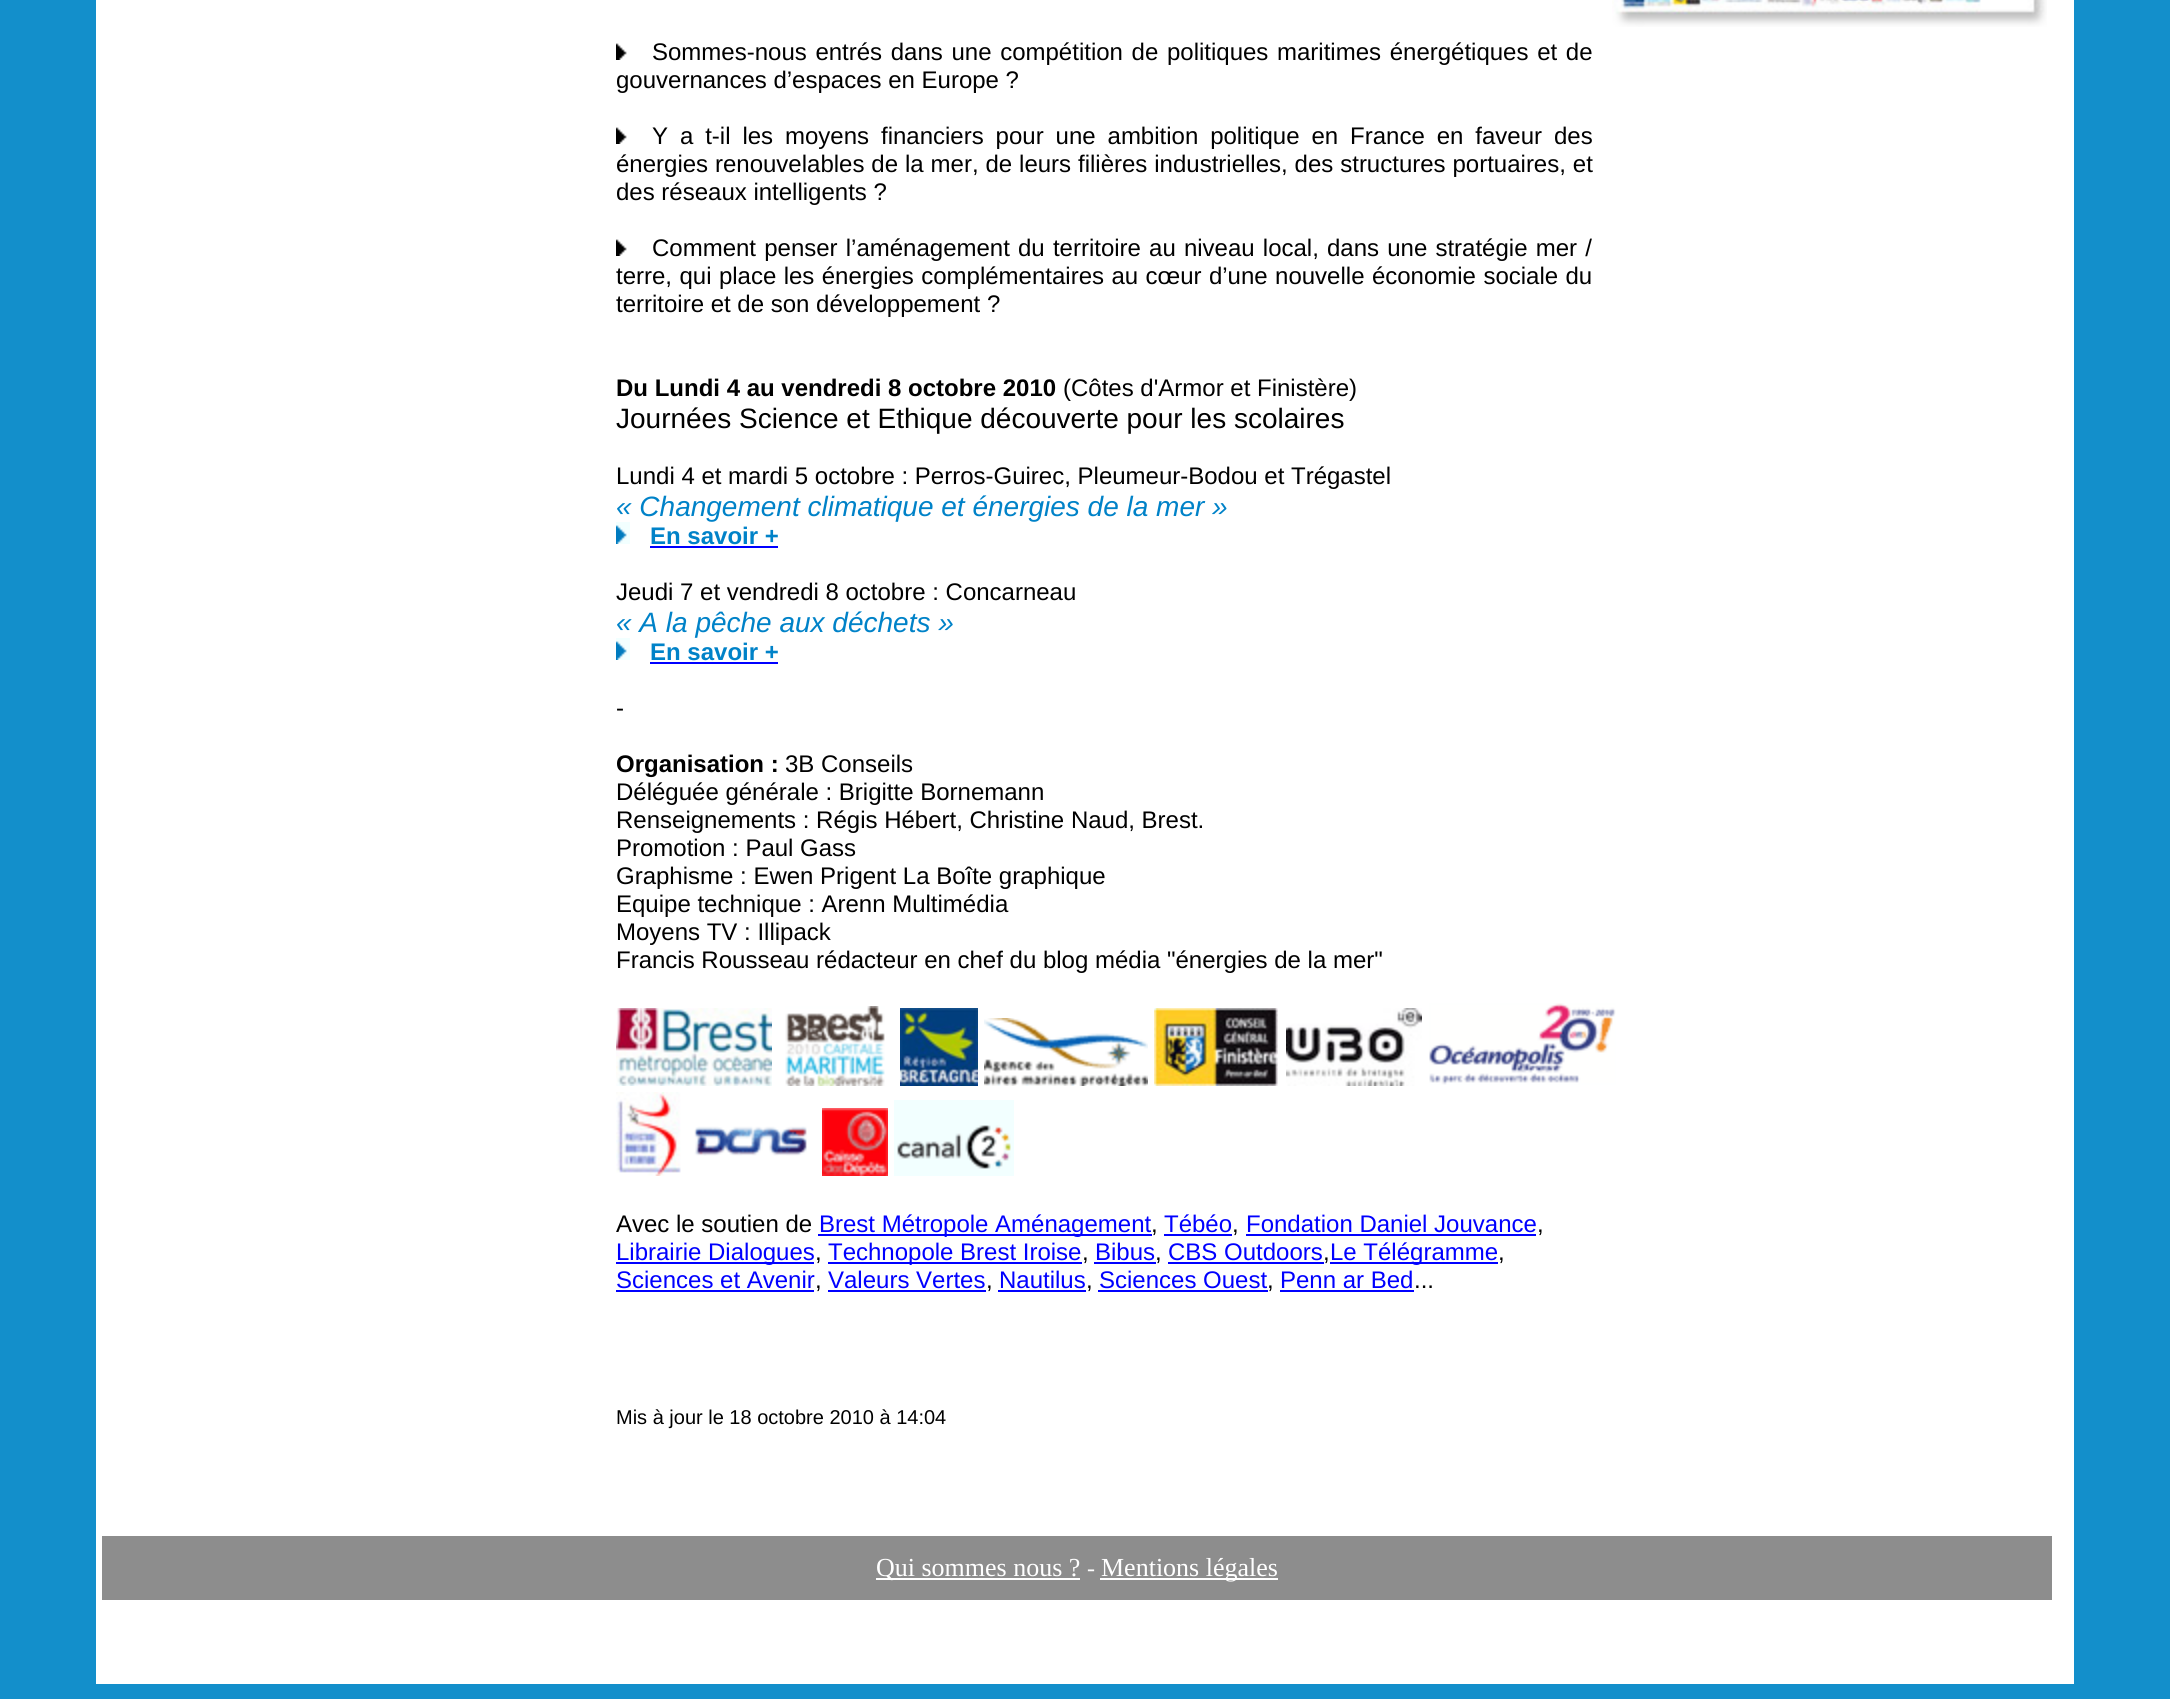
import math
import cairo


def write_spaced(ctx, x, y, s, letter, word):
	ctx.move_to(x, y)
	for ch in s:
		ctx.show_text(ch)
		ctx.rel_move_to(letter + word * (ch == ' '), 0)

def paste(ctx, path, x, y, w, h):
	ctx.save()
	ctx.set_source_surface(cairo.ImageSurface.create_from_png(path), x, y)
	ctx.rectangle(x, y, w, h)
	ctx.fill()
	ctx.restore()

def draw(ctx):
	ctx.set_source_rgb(0.075, 0.561, 0.796)
	ctx.paint()
	ctx.set_source_rgb(1, 1, 1)
	ctx.rectangle(96, 0, 1978, 1684)
	ctx.fill()
	paste(ctx, 'media/1.png', 1612, 0, 435, 27)
	paste(ctx, 'media/2.png', 616, 43, 11, 17)
	ctx.select_font_face('Liberation Sans')
	ctx.set_font_size(24)
	ctx.set_source_rgb(0, 0, 0)
	write_spaced(ctx, 652, 60, 'Sommes-nous entrés dans une compétition de politiques maritimes énergétiques et de', 0, 2)
	ctx.move_to(616, 88)
	ctx.show_text('gouvernances d’espaces en Europe ?')
	paste(ctx, 'media/2.png', 616, 127, 11, 17)
	write_spaced(ctx, 652, 144, 'Y a t-il les moyens financiers pour une ambition politique en France en faveur des', 0, 5.25)
	write_spaced(ctx, 616, 172, 'énergies renouvelables de la mer, de leurs filières industrielles, des structures portuaires, et', 0, 0.25)
	ctx.move_to(616, 200)
	ctx.show_text('des réseaux intelligents ?')
	paste(ctx, 'media/2.png', 616, 239, 11, 17)
	write_spaced(ctx, 652, 256, 'Comment penser l’aménagement du territoire au niveau local, dans une stratégie mer /', 0, 1.5)
	write_spaced(ctx, 616, 284, 'terre, qui place les énergies complémentaires au cœur d’une nouvelle économie sociale du', 0, 0.75)
	ctx.move_to(616, 312)
	ctx.show_text('territoire et de son développement ?')
	ctx.select_font_face('Liberation Sans', cairo.FONT_SLANT_NORMAL, cairo.FONT_WEIGHT_BOLD)
	ctx.move_to(616, 396)
	ctx.show_text('Du Lundi 4 au vendredi 8 octobre 2010')
	ctx.select_font_face('Liberation Sans')
	ctx.move_to(1063, 396)
	ctx.show_text('(Côtes d\'Armor et Finistère)')
	ctx.set_font_size(28)
	ctx.move_to(616, 428)
	ctx.show_text('Journées Science et Ethique découverte pour les scolaires')
	ctx.set_font_size(24)
	ctx.move_to(616, 484)
	ctx.show_text('Lundi 4 et mardi 5 octobre : Perros-Guirec, Pleumeur-Bodou et Trégastel')
	ctx.select_font_face('Liberation Sans', cairo.FONT_SLANT_ITALIC)
	ctx.set_font_size(28)
	ctx.set_source_rgb(0, 0.51, 0.784)
	ctx.move_to(616, 516)
	ctx.show_text('« Changement climatique et énergies de la mer »')
	paste(ctx, 'media/3.png', 616, 522, 14, 22)
	ctx.select_font_face('Liberation Sans', cairo.FONT_SLANT_NORMAL, cairo.FONT_WEIGHT_BOLD)
	ctx.set_font_size(24)
	ctx.move_to(650, 544)
	ctx.show_text('En savoir +')
	ctx.set_source_rgb(0, 0, 1)
	ctx.rectangle(650, 546, 128, 2)
	ctx.fill()
	ctx.select_font_face('Liberation Sans')
	ctx.set_source_rgb(0, 0, 0)
	ctx.move_to(616, 600)
	ctx.show_text('Jeudi 7 et vendredi 8 octobre : Concarneau')
	ctx.select_font_face('Liberation Sans', cairo.FONT_SLANT_ITALIC)
	ctx.set_font_size(28)
	ctx.set_source_rgb(0, 0.51, 0.784)
	ctx.move_to(616, 632)
	ctx.show_text('« A la pêche aux déchets »')
	paste(ctx, 'media/3.png', 616, 638, 14, 22)
	ctx.select_font_face('Liberation Sans', cairo.FONT_SLANT_NORMAL, cairo.FONT_WEIGHT_BOLD)
	ctx.set_font_size(24)
	ctx.move_to(650, 660)
	ctx.show_text('En savoir +')
	ctx.set_source_rgb(0, 0, 1)
	ctx.rectangle(650, 662, 128, 2)
	ctx.fill()
	ctx.select_font_face('Liberation Sans')
	ctx.set_source_rgb(0, 0, 0)
	ctx.move_to(616, 716)
	ctx.show_text('-')
	ctx.select_font_face('Liberation Sans', cairo.FONT_SLANT_NORMAL, cairo.FONT_WEIGHT_BOLD)
	ctx.move_to(616, 772)
	ctx.show_text('Organisation :')
	ctx.select_font_face('Liberation Sans')
	for x, y, s in [
		(785, 772, '3B Conseils'),
		(616, 800, 'Déléguée générale : Brigitte Bornemann'),
		(616, 828, 'Renseignements : Régis Hébert, Christine Naud, Brest.'),
		(616, 856, 'Promotion : Paul Gass'),
		(616, 884, 'Graphisme : Ewen Prigent La Boîte graphique'),
		(616, 912, 'Equipe technique : Arenn Multimédia'),
		(616, 940, 'Moyens TV : Illipack'),
		(616, 968, 'Francis Rousseau rédacteur en chef du blog média "énergies de la mer"'),
	]:
		ctx.move_to(x, y)
		ctx.show_text(s)
	paste(ctx, 'media/4.png', 616, 1008, 156, 78)
	paste(ctx, 'media/5.png', 785, 1006, 100, 80)
	paste(ctx, 'media/6.png', 900, 1008, 78, 78)
	paste(ctx, 'media/7.png', 984, 1018, 164, 68)
	paste(ctx, 'media/8.png', 1154, 1008, 124, 78)
	paste(ctx, 'media/9.png', 1286, 1008, 136, 78)
	paste(ctx, 'media/10.png', 1429, 1003, 187, 82)
	paste(ctx, 'media/11.png', 616, 1092, 65, 84)
	paste(ctx, 'media/12.png', 694, 1126, 113, 30)
	paste(ctx, 'media/13.png', 822, 1108, 66, 68)
	paste(ctx, 'media/14.png', 894, 1100, 120, 76)
	ctx.move_to(616, 1232)
	ctx.show_text('Avec le soutien de')
	ctx.set_source_rgb(0, 0, 1)
	ctx.rectangle(818, 1234, 334, 2)
	ctx.fill()
	ctx.move_to(819, 1232)
	ctx.show_text('Brest Métropole Aménagement')
	ctx.set_source_rgb(0, 0, 0)
	ctx.move_to(1151, 1232)
	ctx.show_text(',')
	ctx.set_source_rgb(0, 0, 1)
	ctx.move_to(1164, 1232)
	ctx.show_text('Tébéo')
	ctx.rectangle(1164, 1234, 68, 2)
	ctx.fill()
	ctx.set_source_rgb(0, 0, 0)
	ctx.move_to(1232, 1232)
	ctx.show_text(',')
	ctx.set_source_rgb(0, 0, 1)
	ctx.move_to(1246, 1232)
	ctx.show_text('Fondation Daniel Jouvance')
	ctx.rectangle(1246, 1234, 290, 2)
	ctx.fill()
	ctx.set_source_rgb(0, 0, 0)
	ctx.move_to(1537, 1232)
	ctx.show_text(',')
	ctx.set_source_rgb(0, 0, 1)
	ctx.rectangle(616, 1262, 198, 2)
	ctx.fill()
	ctx.move_to(616, 1260)
	ctx.show_text('Librairie Dialogues')
	ctx.set_source_rgb(0, 0, 0)
	ctx.move_to(815, 1260)
	ctx.show_text(',')
	ctx.set_source_rgb(0, 0, 1)
	ctx.rectangle(828, 1262, 254, 2)
	ctx.fill()
	ctx.move_to(828, 1260)
	ctx.show_text('Technopole Brest Iroise')
	ctx.set_source_rgb(0, 0, 0)
	ctx.move_to(1082, 1260)
	ctx.show_text(',')
	ctx.set_source_rgb(0, 0, 1)
	ctx.move_to(1095, 1260)
	ctx.show_text('Bibus')
	ctx.rectangle(1094, 1262, 62, 2)
	ctx.fill()
	ctx.set_source_rgb(0, 0, 0)
	ctx.move_to(1155, 1260)
	ctx.show_text(',')
	ctx.set_source_rgb(0, 0, 1)
	ctx.move_to(1168, 1260)
	ctx.show_text('CBS Outdoors')
	ctx.rectangle(1168, 1262, 156, 2)
	ctx.fill()
	ctx.set_source_rgb(0, 0, 0)
	ctx.move_to(1323, 1260)
	ctx.show_text(',')
	ctx.set_source_rgb(0, 0, 1)
	ctx.rectangle(1330, 1262, 168, 2)
	ctx.fill()
	ctx.move_to(1330, 1260)
	ctx.show_text('Le Télégramme')
	ctx.set_source_rgb(0, 0, 0)
	ctx.move_to(1498, 1260)
	ctx.show_text(',')
	ctx.set_source_rgb(0, 0, 1)
	ctx.move_to(616, 1288)
	ctx.show_text('Sciences et Avenir')
	ctx.rectangle(616, 1290, 198, 2)
	ctx.fill()
	ctx.set_source_rgb(0, 0, 0)
	ctx.move_to(815, 1288)
	ctx.show_text(',')
	ctx.set_source_rgb(0, 0, 1)
	ctx.move_to(828, 1288)
	ctx.show_text('Valeurs Vertes')
	ctx.rectangle(828, 1290, 158, 2)
	ctx.fill()
	ctx.set_source_rgb(0, 0, 0)
	ctx.move_to(986, 1288)
	ctx.show_text(',')
	ctx.set_source_rgb(0, 0, 1)
	ctx.move_to(999, 1288)
	ctx.show_text('Nautilus')
	ctx.rectangle(998, 1290, 88, 2)
	ctx.fill()
	ctx.set_source_rgb(0, 0, 0)
	ctx.move_to(1086, 1288)
	ctx.show_text(',')
	ctx.set_source_rgb(0, 0, 1)
	ctx.move_to(1099, 1288)
	ctx.show_text('Sciences Ouest')
	ctx.rectangle(1098, 1290, 170, 2)
	ctx.fill()
	ctx.set_source_rgb(0, 0, 0)
	ctx.move_to(1267, 1288)
	ctx.show_text(',')
	ctx.set_source_rgb(0, 0, 1)
	ctx.move_to(1280, 1288)
	ctx.show_text('Penn ar Bed')
	ctx.rectangle(1280, 1290, 134, 2)
	ctx.fill()
	ctx.set_source_rgb(0, 0, 0)
	ctx.move_to(1414, 1288)
	ctx.show_text('...')
	ctx.set_font_size(20)
	ctx.move_to(616, 1424)
	ctx.show_text('Mis à jour le 18 octobre 2010 à 14:04')
	ctx.set_source_rgb(0.553, 0.553, 0.553)
	ctx.rectangle(102, 1536, 1950, 64)
	ctx.fill()
	ctx.set_source_rgb(1, 1, 1)
	ctx.rectangle(876, 1578, 204, 2)
	ctx.fill()
	ctx.select_font_face('Liberation Serif')
	ctx.set_font_size(26)
	ctx.move_to(876, 1576)
	ctx.show_text('Qui sommes nous ?')
	ctx.set_font_size(24)
	ctx.move_to(1087, 1576)
	ctx.show_text('-')
	ctx.rectangle(1100, 1578, 178, 2)
	ctx.fill()
	ctx.set_font_size(26)
	ctx.move_to(1101, 1576)
	ctx.show_text('Mentions légales')


surface = cairo.ImageSurface(cairo.FORMAT_RGB24, 2170, 1699)
ctx = cairo.Context(surface)
options = cairo.FontOptions()
options.set_hint_metrics(cairo.HINT_METRICS_OFF)
options.set_hint_style(cairo.HINT_STYLE_NONE)
ctx.set_font_options(options)
ctx.set_miter_limit(4)
draw(ctx)
surface.write_to_png('image.png')
